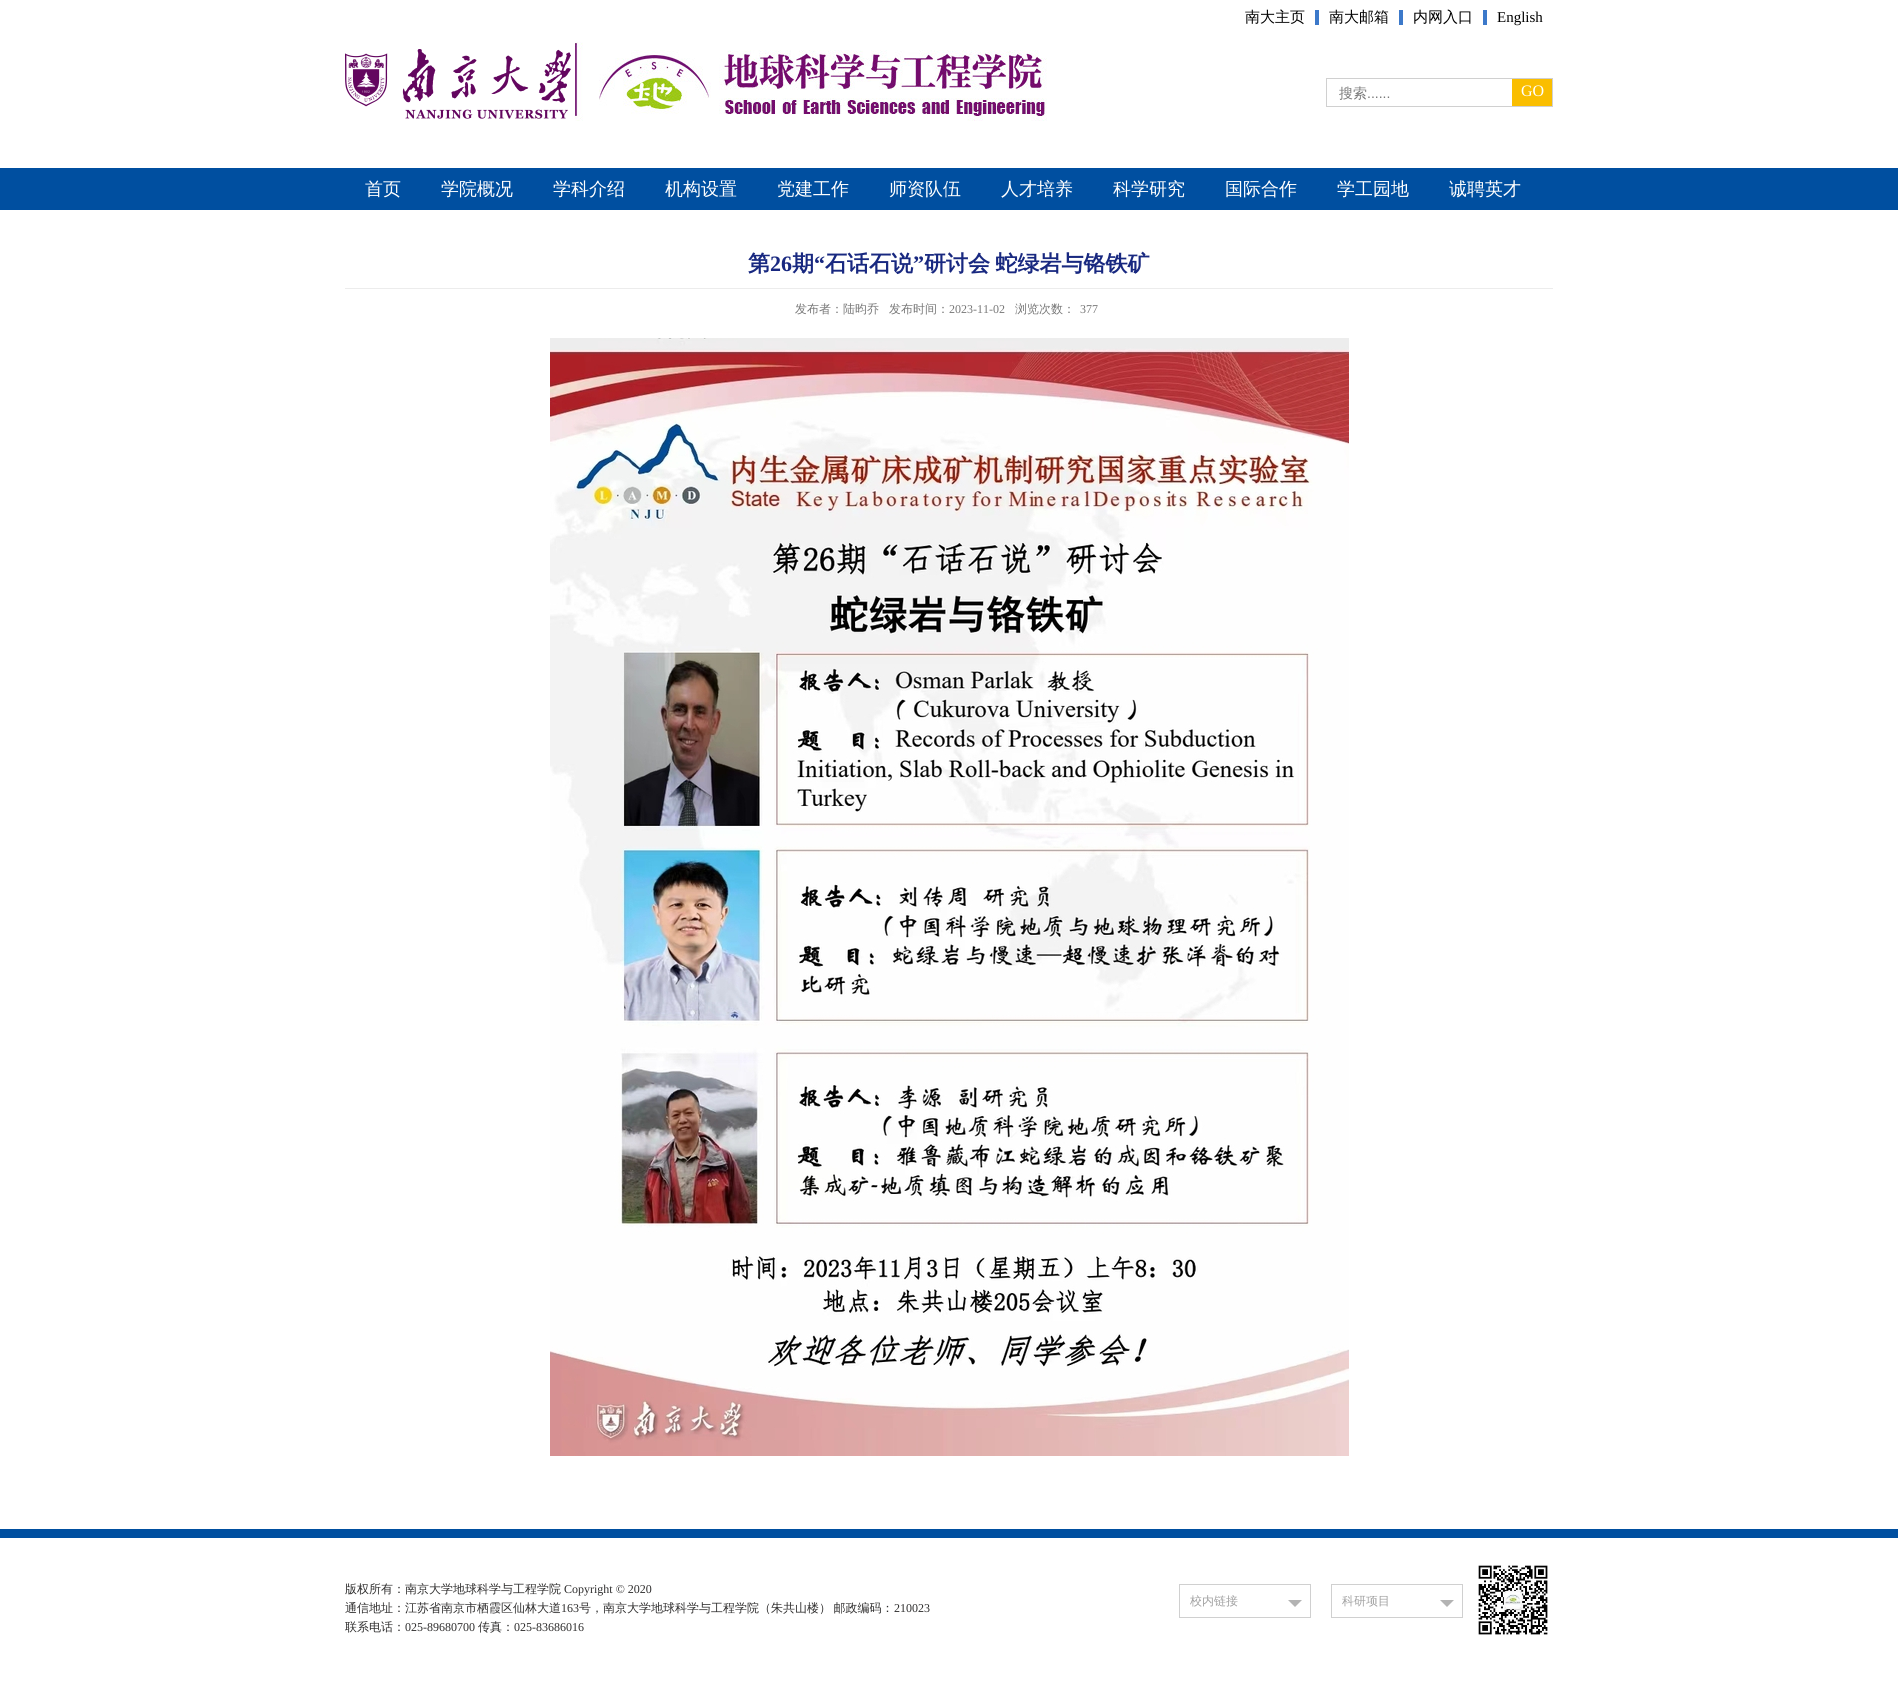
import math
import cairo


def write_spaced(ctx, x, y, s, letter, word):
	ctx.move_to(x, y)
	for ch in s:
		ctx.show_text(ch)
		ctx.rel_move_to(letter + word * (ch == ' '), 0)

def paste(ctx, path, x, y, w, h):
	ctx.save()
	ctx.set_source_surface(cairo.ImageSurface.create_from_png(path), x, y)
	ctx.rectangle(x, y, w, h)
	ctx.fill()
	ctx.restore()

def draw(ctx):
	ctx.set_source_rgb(1, 1, 1)
	ctx.paint()
	ctx.set_source_rgb(0.235, 0.475, 0.792)
	ctx.rectangle(1315, 10, 4, 15)
	ctx.fill()
	ctx.select_font_face('WenQuanYi Zen Hei Medium')
	ctx.set_font_size(15)
	ctx.set_source_rgb(0, 0, 0)
	ctx.move_to(1245, 22)
	ctx.show_text('南大主页')
	ctx.set_source_rgb(0.235, 0.475, 0.792)
	ctx.rectangle(1399, 10, 4, 15)
	ctx.fill()
	ctx.set_source_rgb(0, 0, 0)
	ctx.move_to(1329, 22)
	ctx.show_text('南大邮箱')
	ctx.set_source_rgb(0.235, 0.475, 0.792)
	ctx.rectangle(1483, 10, 4, 15)
	ctx.fill()
	ctx.set_source_rgb(0, 0, 0)
	ctx.move_to(1413, 22)
	ctx.show_text('内网入口')
	ctx.select_font_face('Liberation Serif')
	ctx.move_to(1497, 22)
	ctx.show_text('English')
	paste(ctx, 'media/1.png', 345, 49, 226, 70)
	paste(ctx, 'media/2.png', 575, 42, 472, 79)
	ctx.rectangle(1326.5, 78.5, 226, 28)
	ctx.set_source_rgb(0.816, 0.816, 0.816)
	ctx.set_line_width(1)
	ctx.stroke()
	ctx.select_font_face('WenQuanYi Zen Hei Medium')
	ctx.set_font_size(14)
	ctx.set_source_rgb(0.471, 0.471, 0.471)
	ctx.move_to(1339, 98)
	ctx.show_text('搜索')
	ctx.select_font_face('Liberation Sans')
	ctx.move_to(1367, 98)
	ctx.show_text('......')
	ctx.set_source_rgb(0.98, 0.745, 0)
	ctx.rectangle(1512, 79, 40, 27)
	ctx.fill()
	ctx.select_font_face('Liberation Serif')
	ctx.set_font_size(16)
	ctx.set_source_rgb(1, 1, 1)
	ctx.move_to(1521, 96)
	ctx.show_text('GO')
	ctx.set_source_rgb(0, 0.31, 0.627)
	ctx.rectangle(0, 168, 1898, 42)
	ctx.fill()
	ctx.select_font_face('WenQuanYi Zen Hei Medium')
	ctx.set_font_size(18)
	ctx.set_source_rgb(1, 1, 1)
	for x, y, s in [
		(365, 195, '首页'),
		(441, 195, '学院概况'),
		(553, 195, '学科介绍'),
		(665, 195, '机构设置'),
		(777, 195, '党建工作'),
		(889, 195, '师资队伍'),
		(1001, 195, '人才培养'),
		(1113, 195, '科学研究'),
		(1225, 195, '国际合作'),
		(1337, 195, '学工园地'),
		(1449, 195, '诚聘英才'),
	]:
		ctx.move_to(x, y)
		ctx.show_text(s)
	ctx.select_font_face('WenQuanYi Zen Hei', cairo.FONT_SLANT_NORMAL, cairo.FONT_WEIGHT_BOLD)
	ctx.set_font_size(22)
	ctx.set_source_rgb(0.094, 0.157, 0.502)
	ctx.move_to(748, 271)
	ctx.show_text('第')
	ctx.select_font_face('Liberation Serif', cairo.FONT_SLANT_NORMAL, cairo.FONT_WEIGHT_BOLD)
	ctx.move_to(770, 271)
	ctx.show_text('26')
	ctx.select_font_face('WenQuanYi Zen Hei', cairo.FONT_SLANT_NORMAL, cairo.FONT_WEIGHT_BOLD)
	ctx.move_to(792, 271)
	ctx.show_text('期')
	ctx.select_font_face('Liberation Serif', cairo.FONT_SLANT_NORMAL, cairo.FONT_WEIGHT_BOLD)
	ctx.move_to(814, 271)
	ctx.show_text('“')
	ctx.select_font_face('WenQuanYi Zen Hei', cairo.FONT_SLANT_NORMAL, cairo.FONT_WEIGHT_BOLD)
	ctx.move_to(825, 271)
	ctx.show_text('石话石说')
	ctx.select_font_face('Liberation Serif', cairo.FONT_SLANT_NORMAL, cairo.FONT_WEIGHT_BOLD)
	ctx.move_to(913, 271)
	ctx.show_text('”')
	ctx.select_font_face('WenQuanYi Zen Hei', cairo.FONT_SLANT_NORMAL, cairo.FONT_WEIGHT_BOLD)
	write_spaced(ctx, 924, 271, '研讨会 蛇绿岩与铬铁矿', 0, -1)
	ctx.set_source_rgb(0.925, 0.925, 0.925)
	ctx.rectangle(345, 288, 1208, 1)
	ctx.fill()
	ctx.select_font_face('WenQuanYi Zen Hei Medium')
	ctx.set_font_size(12)
	ctx.set_source_rgb(0.471, 0.471, 0.471)
	ctx.move_to(795, 313)
	ctx.show_text('发布者：陆昀乔')
	ctx.move_to(889, 313)
	ctx.show_text('发布时间：')
	ctx.select_font_face('Liberation Serif')
	ctx.move_to(949, 313)
	ctx.show_text('2023-11-02')
	ctx.select_font_face('WenQuanYi Zen Hei Medium')
	ctx.move_to(1015, 313)
	ctx.show_text('浏览次数：')
	ctx.select_font_face('Liberation Serif')
	ctx.move_to(1080, 313)
	ctx.show_text('377')
	paste(ctx, 'media/3.png', 550, 338, 799, 1118)
	ctx.set_source_rgb(0, 0.31, 0.627)
	ctx.rectangle(0, 1529, 1898, 9)
	ctx.fill()
	ctx.select_font_face('WenQuanYi Zen Hei Medium')
	ctx.set_source_rgb(0.184, 0.18, 0.18)
	ctx.move_to(345, 1593)
	ctx.show_text('版权所有：南京大学地球科学与工程学院')
	ctx.select_font_face('Liberation Serif')
	ctx.move_to(564, 1593)
	ctx.show_text('Copyright © 2020')
	ctx.select_font_face('WenQuanYi Zen Hei Medium')
	ctx.move_to(345, 1612)
	ctx.show_text('通信地址：江苏省南京市栖霞区仙林大道')
	ctx.select_font_face('Liberation Serif')
	ctx.move_to(561, 1612)
	ctx.show_text('163')
	ctx.select_font_face('WenQuanYi Zen Hei Medium')
	write_spaced(ctx, 579, 1612, '号，南京大学地球科学与工程学院（朱共山楼） 邮政编码：', 0, -1)
	ctx.select_font_face('Liberation Serif')
	ctx.move_to(894, 1612)
	ctx.show_text('210023')
	ctx.select_font_face('WenQuanYi Zen Hei Medium')
	ctx.move_to(345, 1631)
	ctx.show_text('联系电话：')
	ctx.select_font_face('Liberation Serif')
	ctx.move_to(405, 1631)
	ctx.show_text('025-89680700')
	ctx.select_font_face('WenQuanYi Zen Hei Medium')
	ctx.move_to(478, 1631)
	ctx.show_text('传真：')
	ctx.select_font_face('Liberation Serif')
	ctx.move_to(514, 1631)
	ctx.show_text('025-83686016')
	ctx.rectangle(1179.5, 1584.5, 131, 33)
	ctx.set_source_rgb(0.816, 0.816, 0.816)
	ctx.stroke()
	paste(ctx, 'media/4.png', 1288, 1600, 14, 7)
	ctx.select_font_face('WenQuanYi Zen Hei Medium')
	ctx.set_source_rgb(0.631, 0.631, 0.631)
	ctx.move_to(1190, 1605)
	ctx.show_text('校内链接')
	ctx.rectangle(1331.5, 1584.5, 131, 33)
	ctx.set_source_rgb(0.816, 0.816, 0.816)
	ctx.stroke()
	paste(ctx, 'media/4.png', 1440, 1600, 14, 7)
	ctx.set_source_rgb(0.631, 0.631, 0.631)
	ctx.move_to(1342, 1605)
	ctx.show_text('科研项目')
	paste(ctx, 'media/5.png', 1478, 1565, 70, 70)


surface = cairo.ImageSurface(cairo.FORMAT_RGB24, 1898, 1696)
ctx = cairo.Context(surface)
options = cairo.FontOptions()
options.set_hint_metrics(cairo.HINT_METRICS_OFF)
options.set_hint_style(cairo.HINT_STYLE_NONE)
ctx.set_font_options(options)
ctx.set_miter_limit(4)
draw(ctx)
surface.write_to_png('image.png')
